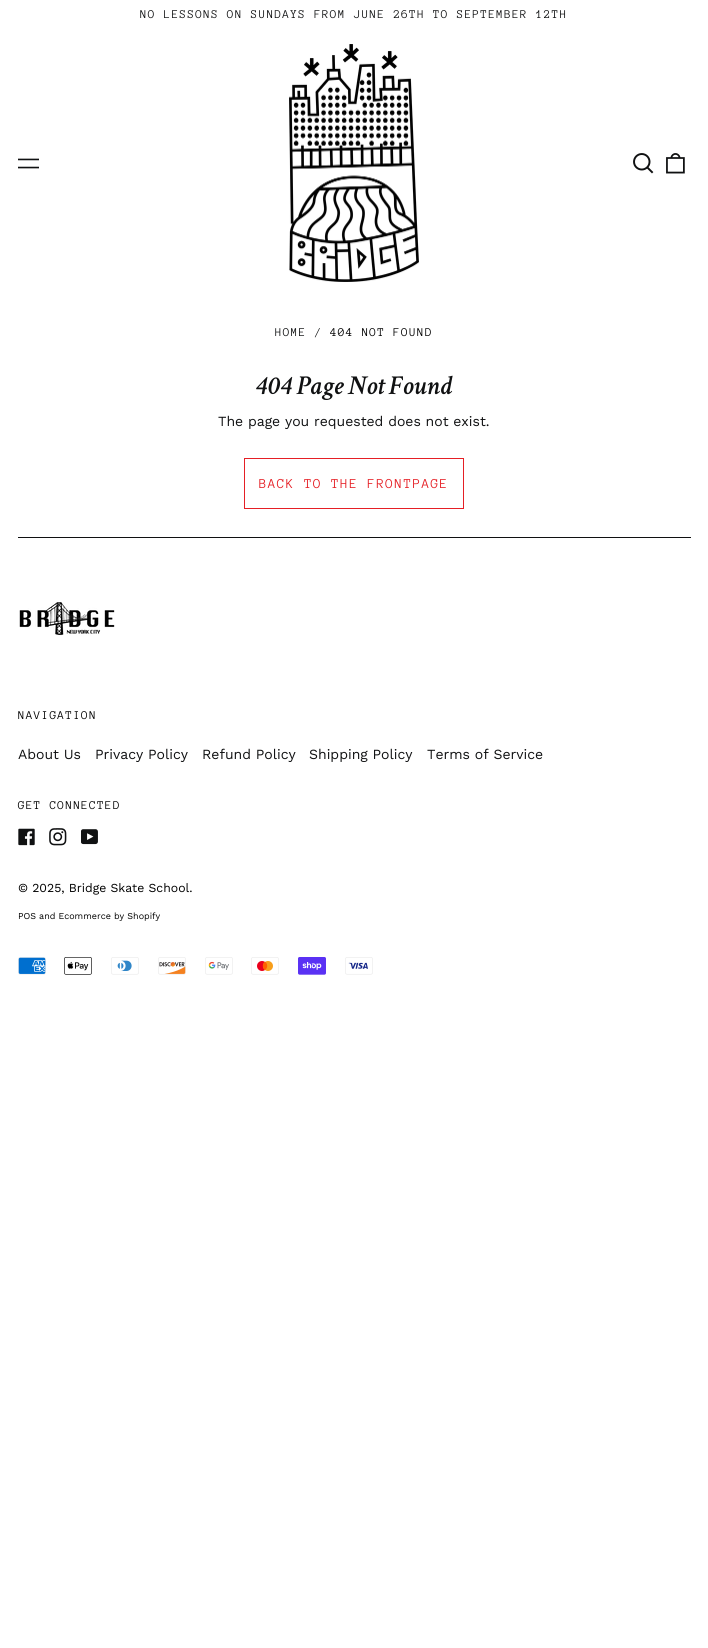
import math
import cairo


def write_spaced(ctx, x, y, s, letter, word):
	ctx.move_to(x, y)
	for ch in s:
		ctx.show_text(ch)
		ctx.rel_move_to(letter + word * (ch == ' '), 0)

def paste(ctx, path, x, y, w, h):
	ctx.save()
	ctx.set_source_surface(cairo.ImageSurface.create_from_png(path), x, y)
	ctx.rectangle(x, y, w, h)
	ctx.fill()
	ctx.restore()

def draw(ctx):
	ctx.set_source_rgb(1, 1, 1)
	ctx.paint()
	ctx.select_font_face('Anonymous Pro')
	ctx.set_font_size(12.25)
	ctx.set_source_rgb(0.063, 0.067, 0.071)
	write_spaced(ctx, 140, 18, 'NO LESSONS ON SUNDAYS FROM JUNE 26TH TO SEPTEMBER 12TH', 1.23, 0)
	paste(ctx, 'media/1.png', 18, 158, 21, 11)
	paste(ctx, 'media/2.png', 289, 44, 130, 238)
	paste(ctx, 'media/3.png', 633, 153, 21, 21)
	paste(ctx, 'media/4.png', 666, 153, 19, 21)
	write_spaced(ctx, 275, 336, 'HOME /', 1.23, 0)
	ctx.set_source_rgb(0, 0, 0)
	write_spaced(ctx, 330, 336, '404 NOT FOUND', 1.23, 0)
	ctx.select_font_face('Crimson Text SemiBold', cairo.FONT_SLANT_ITALIC)
	ctx.set_font_size(27.25)
	ctx.set_source_rgb(0.063, 0.067, 0.071)
	ctx.move_to(256, 394)
	ctx.show_text('404 Page Not Found')
	ctx.select_font_face('Work Sans')
	ctx.set_font_size(14)
	ctx.move_to(218, 426)
	ctx.show_text('The page you requested does not exist.')
	ctx.rectangle(244.5, 458.5, 219, 50)
	ctx.set_source_rgb(0.898, 0.122, 0.145)
	ctx.set_line_width(1)
	ctx.stroke()
	ctx.select_font_face('Anonymous Pro')
	write_spaced(ctx, 259, 488, 'BACK TO THE FRONTPAGE', 1.4, 0)
	ctx.set_source_rgb(0.063, 0.067, 0.071)
	ctx.rectangle(18, 537, 673, 1)
	ctx.fill()
	paste(ctx, 'media/5.png', 19, 602, 96, 34)
	ctx.set_font_size(12.25)
	ctx.set_source_rgb(0, 0, 0)
	write_spaced(ctx, 18, 719, 'NAVIGATION', 1.23, 0)
	ctx.select_font_face('Work Sans')
	ctx.set_font_size(14)
	ctx.set_source_rgb(0.063, 0.067, 0.071)
	for x, y, s in [
		(18, 759, 'About Us'),
		(95, 759, 'Privacy Policy'),
		(202, 759, 'Refund Policy'),
		(309, 759, 'Shipping Policy'),
		(427, 759, 'Terms of Service'),
	]:
		ctx.move_to(x, y)
		ctx.show_text(s)
	ctx.select_font_face('Anonymous Pro')
	ctx.set_font_size(12.25)
	ctx.set_source_rgb(0, 0, 0)
	write_spaced(ctx, 18, 809, 'GET CONNECTED', 1.23, 0)
	paste(ctx, 'media/6.png', 18, 828, 17, 18)
	paste(ctx, 'media/7.png', 49, 828, 18, 18)
	paste(ctx, 'media/8.png', 81, 829, 17, 16)
	ctx.select_font_face('Work Sans')
	ctx.move_to(18, 892)
	ctx.show_text('© 2025, Bridge Skate School.')
	ctx.set_font_size(9)
	ctx.move_to(18, 919)
	ctx.show_text('POS and Ecommerce by Shopify')
	paste(ctx, 'media/9.png', 18, 957, 28, 18)
	paste(ctx, 'media/10.png', 64, 957, 28, 18)
	paste(ctx, 'media/11.png', 111, 957, 28, 18)
	paste(ctx, 'media/12.png', 158, 957, 28, 18)
	paste(ctx, 'media/13.png', 205, 957, 28, 18)
	paste(ctx, 'media/14.png', 251, 957, 28, 18)
	paste(ctx, 'media/15.png', 298, 957, 28, 18)
	paste(ctx, 'media/16.png', 345, 957, 28, 18)


surface = cairo.ImageSurface(cairo.FORMAT_RGB24, 708, 1648)
ctx = cairo.Context(surface)
options = cairo.FontOptions()
options.set_hint_metrics(cairo.HINT_METRICS_OFF)
options.set_hint_style(cairo.HINT_STYLE_NONE)
ctx.set_font_options(options)
ctx.set_miter_limit(4)
draw(ctx)
surface.write_to_png('image.png')
